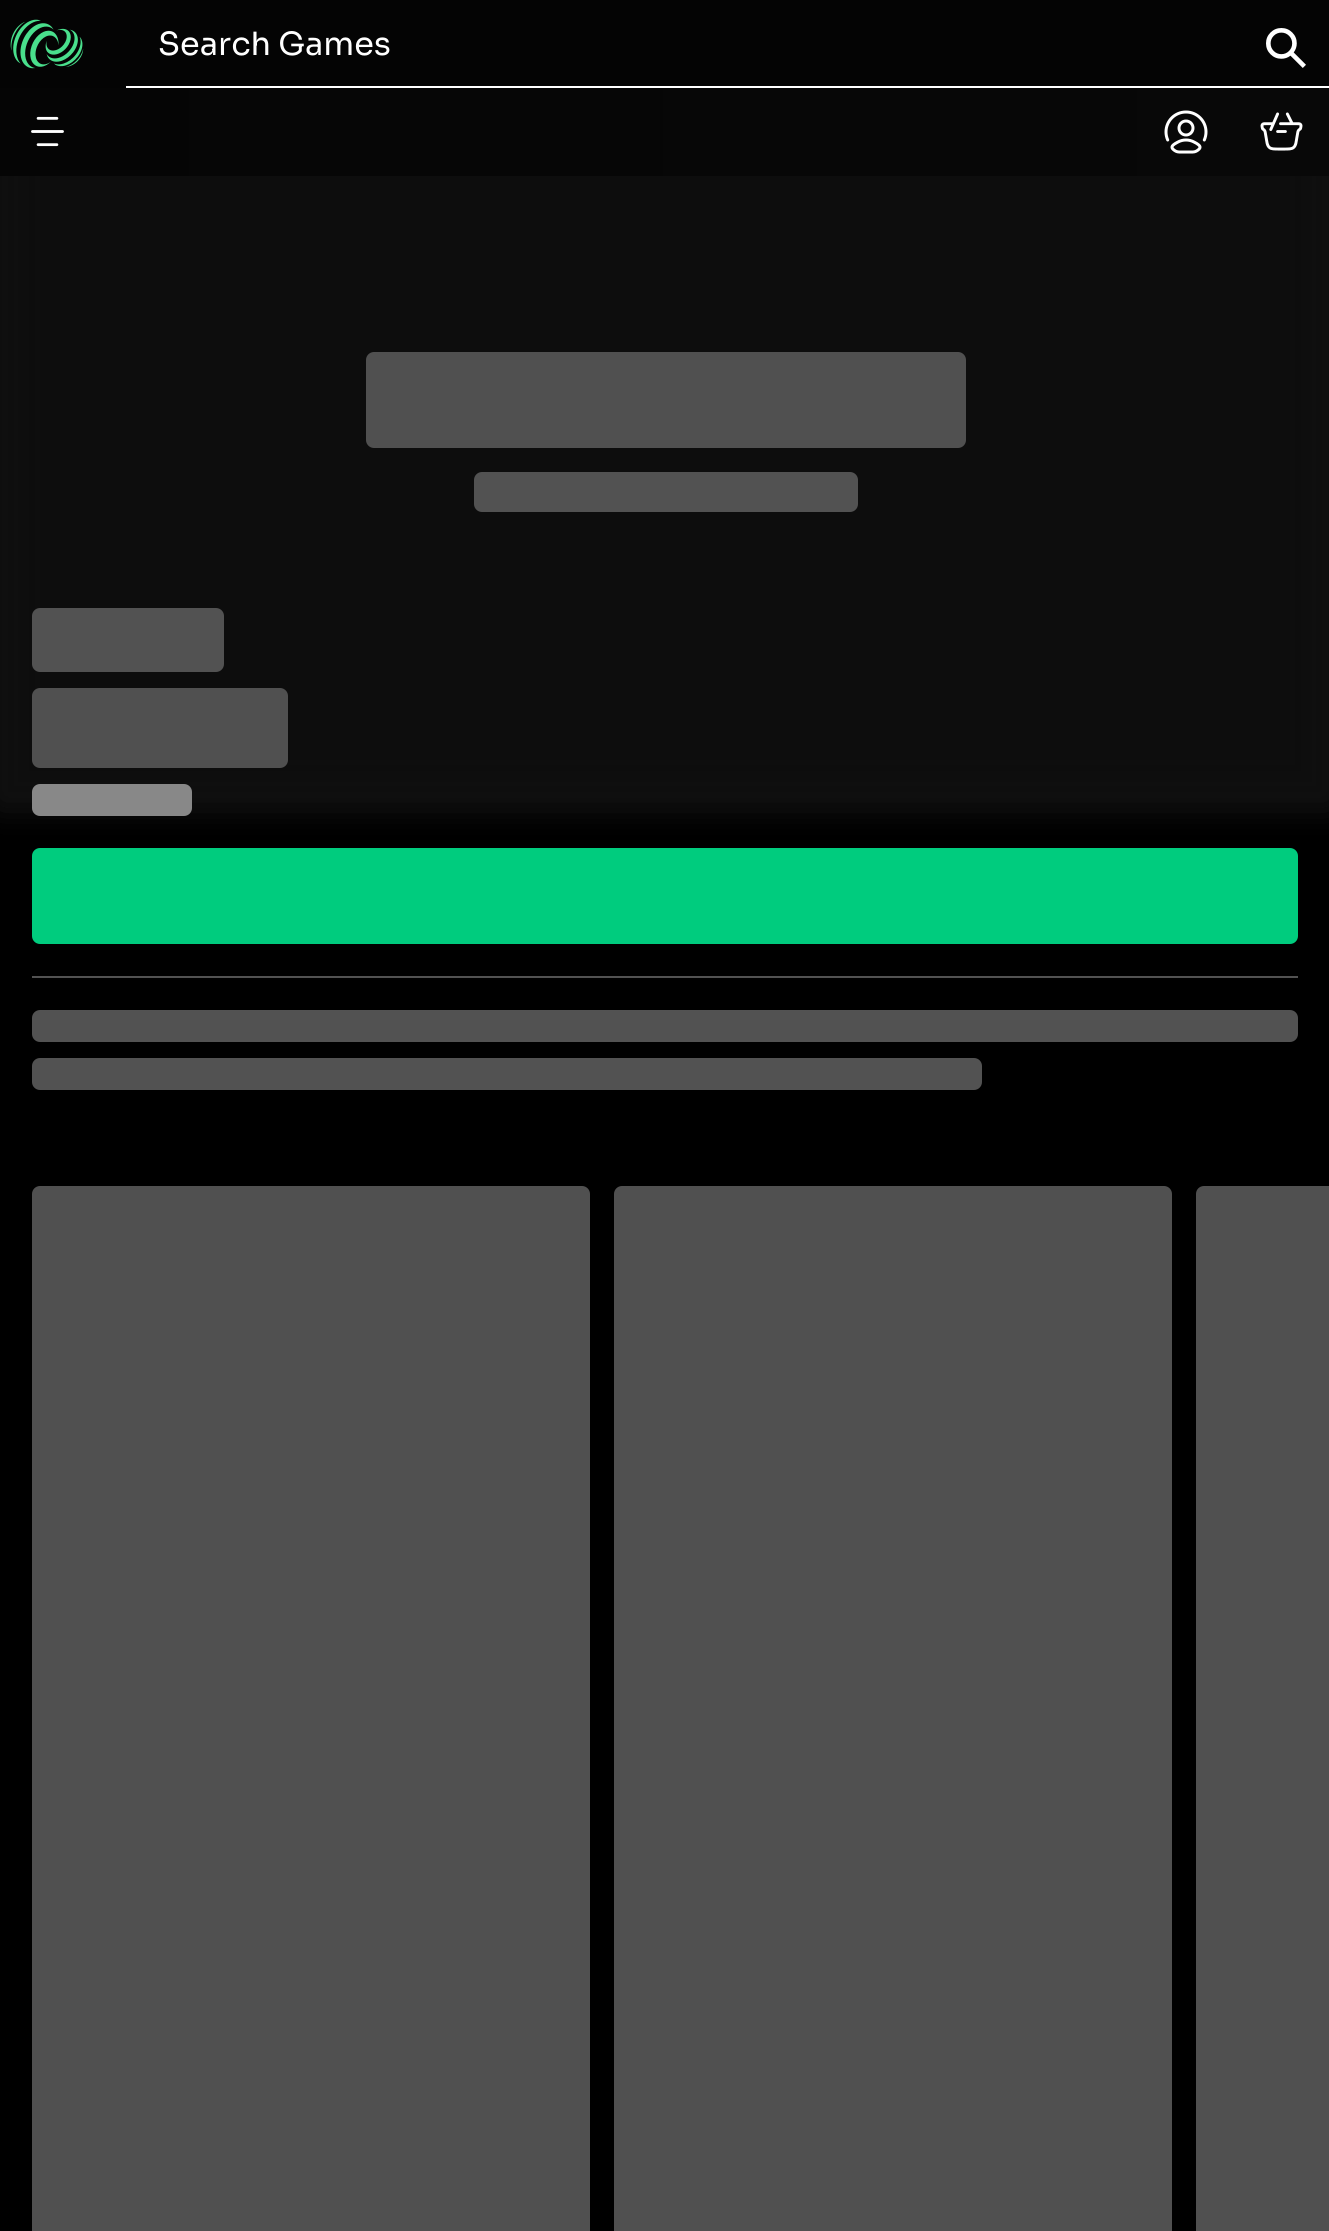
import math
import cairo


def round_path(ctx, x, y, w, h, r):
	ctx.new_sub_path()
	for i, (u, v) in enumerate([(x + w - r, y + h - r), (x + r, y + h - r), (x + r, y + r), (x + w - r, y + r)]):
		ctx.arc(u, v, r, i * math.pi / 2, (i + 1) * math.pi / 2)
	ctx.close_path()

def blur_box(ctx, x, y, w, h, r, blur, alpha):
	ctx.push_group_with_content(cairo.CONTENT_ALPHA)
	ctx.set_operator(cairo.OPERATOR_SOURCE)
	for i in range(15, -16, -2):
		e = blur * i / 6
		if min(w, h) + 2 * e > 0:
			ctx.set_source_rgba(0, 0, 0, alpha * math.erfc((i - 1) / 8.5) / 2)
			round_path(ctx, x - e, y - e, w + 2 * e, h + 2 * e, max(0, min(r + e + blur * .6, min(w, h) / 2 + e)))
			ctx.fill()
	ctx.mask(ctx.pop_group())

def paste(ctx, path, x, y, w, h):
	ctx.save()
	ctx.set_source_surface(cairo.ImageSurface.create_from_png(path), x, y)
	ctx.rectangle(x, y, w, h)
	ctx.fill()
	ctx.restore()

def draw(ctx):
	ctx.set_source_rgb(0, 0, 0)
	ctx.paint()
	ctx.set_source_rgb(0.184, 0.184, 0.184)
	blur_box(ctx, 0, 0, 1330, 800, 0, 16, 1)
	ctx.set_source_rgb(0, 0, 0)
	blur_box(ctx, 0, 0, 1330, 800, 0, 16, 0.44)
	blur_box(ctx, 0, 0, 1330, 800, 0, 16, 0.5)
	ctx.set_source_rgb(0.314, 0.314, 0.314)
	round_path(ctx, 366, 352, 600, 96, 8)
	ctx.fill()
	ctx.set_source_rgb(0.322, 0.322, 0.322)
	round_path(ctx, 474, 472, 384, 40, 8)
	ctx.fill()
	round_path(ctx, 32, 608, 192, 64, 8)
	ctx.fill()
	ctx.set_source_rgb(0.314, 0.314, 0.314)
	round_path(ctx, 32, 688, 256, 80, 8)
	ctx.fill()
	ctx.set_source_rgb(0.533, 0.533, 0.533)
	round_path(ctx, 32, 784, 160, 32, 8)
	ctx.fill()
	ctx.set_source_rgb(0, 0.8, 0.494)
	round_path(ctx, 32, 848, 1266, 96, 8)
	ctx.fill()
	ctx.set_source_rgb(0.322, 0.322, 0.322)
	ctx.rectangle(32, 976, 1266, 2)
	ctx.fill()
	round_path(ctx, 32, 1010, 1266, 32, 8)
	ctx.fill()
	round_path(ctx, 32, 1058, 950, 32, 8)
	ctx.fill()
	ctx.set_source_rgb(0.314, 0.314, 0.314)
	round_path(ctx, 32, 1186, 558, 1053, 8)
	ctx.fill()
	round_path(ctx, 614, 1186, 558, 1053, 8)
	ctx.fill()
	ctx.new_path()
	ctx.move_to(1204, 1186)
	ctx.line_to(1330, 1186)
	ctx.line_to(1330, 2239)
	ctx.line_to(1204, 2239)
	ctx.curve_to(1199.5, 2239, 1196, 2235.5, 1196, 2231)
	ctx.line_to(1196, 1194)
	ctx.curve_to(1196, 1189.5, 1199.5, 1186, 1204, 1186)
	ctx.close_path()
	ctx.fill()
	ctx.set_source_rgba(0, 0, 0, 0.7)
	ctx.rectangle(0, 0, 1329, 88)
	ctx.fill()
	paste(ctx, 'media/1.png', 10, 19, 74, 50)
	ctx.set_source_rgb(1, 1, 1)
	ctx.rectangle(126, 86, 1203, 2)
	ctx.fill()
	ctx.select_font_face('Sora')
	ctx.set_font_size(32)
	ctx.move_to(158, 55)
	ctx.show_text('Search Games')
	paste(ctx, 'media/2.png', 1266, 28, 40, 40)
	gradient = cairo.LinearGradient(0, 132, 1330, 132)
	gradient.add_color_stop_rgba(0, 0.02, 0.02, 0.02, 1)
	gradient.add_color_stop_rgba(1, 0.031, 0.031, 0.031, 1)
	ctx.set_source(gradient)
	ctx.rectangle(0, 88, 1329, 88)
	ctx.fill()
	paste(ctx, 'media/3.png', 31, 116, 33, 31)
	paste(ctx, 'media/4.png', 1164, 110, 44, 44)
	paste(ctx, 'media/5.png', 1260, 112, 43, 39)


surface = cairo.ImageSurface(cairo.FORMAT_RGB24, 1329, 2231)
ctx = cairo.Context(surface)
options = cairo.FontOptions()
options.set_hint_metrics(cairo.HINT_METRICS_OFF)
options.set_hint_style(cairo.HINT_STYLE_NONE)
ctx.set_font_options(options)
ctx.set_miter_limit(4)
draw(ctx)
surface.write_to_png('image.png')
